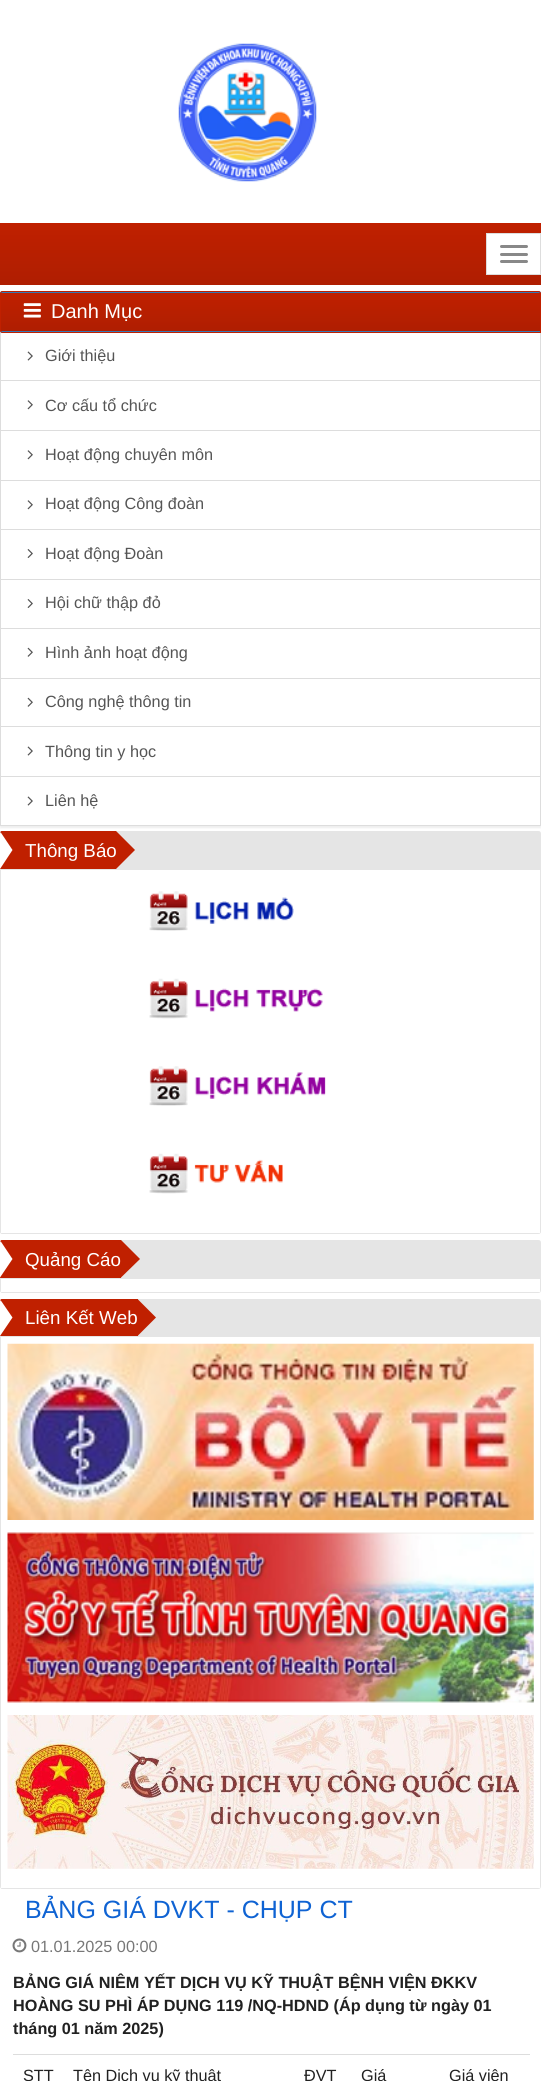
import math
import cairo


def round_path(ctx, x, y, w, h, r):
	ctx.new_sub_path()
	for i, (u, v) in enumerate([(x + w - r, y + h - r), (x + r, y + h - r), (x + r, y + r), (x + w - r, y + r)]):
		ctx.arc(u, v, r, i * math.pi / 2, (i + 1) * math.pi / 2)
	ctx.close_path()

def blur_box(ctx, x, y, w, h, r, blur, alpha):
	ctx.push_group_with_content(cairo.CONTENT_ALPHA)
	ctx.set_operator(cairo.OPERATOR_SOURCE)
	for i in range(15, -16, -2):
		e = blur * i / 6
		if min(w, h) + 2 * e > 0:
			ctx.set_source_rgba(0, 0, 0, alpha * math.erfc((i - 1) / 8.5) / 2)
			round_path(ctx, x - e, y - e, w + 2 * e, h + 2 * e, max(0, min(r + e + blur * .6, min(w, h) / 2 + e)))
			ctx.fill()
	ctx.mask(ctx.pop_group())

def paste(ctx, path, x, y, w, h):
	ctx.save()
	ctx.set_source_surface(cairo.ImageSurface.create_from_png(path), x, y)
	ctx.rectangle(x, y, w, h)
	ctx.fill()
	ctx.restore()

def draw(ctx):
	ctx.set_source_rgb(1, 1, 1)
	ctx.paint()
	paste(ctx, 'media/1.png', 178, 43, 139, 139)
	gradient = cairo.LinearGradient(271, 222, 271, 285)
	gradient.add_color_stop_rgba(0, 0.753, 0.125, 0, 1)
	gradient.add_color_stop_rgba(1, 0.686, 0.118, 0.004, 1)
	ctx.set_source(gradient)
	ctx.rectangle(0, 223, 541, 62)
	ctx.fill()
	ctx.set_source_rgb(1, 1, 1)
	ctx.rectangle(486.5, 233.5, 54, 41)
	ctx.fill_preserve()
	ctx.set_source_rgb(0.867, 0.867, 0.867)
	ctx.set_line_width(1)
	ctx.stroke()
	ctx.set_source_rgb(0.533, 0.533, 0.533)
	round_path(ctx, 500, 245, 28, 3, 1.5)
	ctx.fill()
	round_path(ctx, 500, 253, 28, 3, 1.5)
	ctx.fill()
	round_path(ctx, 500, 260, 28, 3, 1.5)
	ctx.fill()
	ctx.save()
	ctx.rectangle(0, 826, 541, 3)
	ctx.clip()
	ctx.set_source_rgb(0, 0, 0)
	blur_box(ctx, 0, 293, 541, 535, 0, 1, 0.07)
	ctx.restore()
	ctx.rectangle(0.5, 331.5, 540, 49)
	ctx.set_source_rgb(0.867, 0.867, 0.867)
	ctx.stroke()
	ctx.set_source_rgb(0.2, 0.478, 0.718)
	ctx.new_path()
	ctx.move_to(2.5, 291)
	ctx.line_to(538.5, 291)
	ctx.curve_to(540, 291, 541, 292, 541, 293.5)
	ctx.line_to(541, 333)
	ctx.line_to(2.5, 333)
	ctx.curve_to(1, 333, 0, 332, 0, 330.5)
	ctx.line_to(0, 293.5)
	ctx.curve_to(0, 292, 1, 291, 2.5, 291)
	ctx.close_path()
	ctx.fill()
	gradient = cairo.LinearGradient(271, 292, 271, 331)
	gradient.add_color_stop_rgba(0, 0.753, 0.125, 0, 1)
	gradient.add_color_stop_rgba(1, 0.686, 0.118, 0.004, 1)
	ctx.set_source(gradient)
	ctx.rectangle(0, 293, 541, 38)
	ctx.fill()
	ctx.new_path()
	ctx.move_to(2.5, 291.5)
	ctx.line_to(538.5, 291.5)
	ctx.curve_to(539.5, 291.5, 540.5, 292.5, 540.5, 293.5)
	ctx.line_to(540.5, 332.5)
	ctx.line_to(2.5, 332.5)
	ctx.curve_to(1.5, 332.5, 0.5, 331.5, 0.5, 330.5)
	ctx.line_to(0.5, 293.5)
	ctx.curve_to(0.5, 292.5, 1.5, 291.5, 2.5, 291.5)
	ctx.close_path()
	ctx.set_source_rgb(0.753, 0.125, 0)
	ctx.stroke()
	paste(ctx, 'media/2.png', 23, 303, 18, 15)
	ctx.select_font_face('Liberation Sans')
	ctx.set_font_size(20)
	ctx.set_source_rgb(1, 1, 1)
	ctx.move_to(51, 318)
	ctx.show_text('Danh Mục')
	paste(ctx, 'media/3.png', 27, 351, 6, 10)
	ctx.set_font_size(16.25)
	ctx.set_source_rgb(0.333, 0.333, 0.333)
	ctx.move_to(45, 361)
	ctx.show_text('Giới thiệu')
	ctx.rectangle(0.5, 380.5, 540, 50)
	ctx.set_source_rgb(0.867, 0.867, 0.867)
	ctx.stroke()
	paste(ctx, 'media/4.png', 27, 400, 6, 10)
	ctx.set_source_rgb(0.333, 0.333, 0.333)
	ctx.move_to(45, 411)
	ctx.show_text('Cơ cấu tổ chức')
	ctx.rectangle(0.5, 430.5, 540, 50)
	ctx.set_source_rgb(0.867, 0.867, 0.867)
	ctx.stroke()
	paste(ctx, 'media/4.png', 27, 450, 6, 10)
	ctx.set_source_rgb(0.333, 0.333, 0.333)
	ctx.move_to(45, 460)
	ctx.show_text('Hoạt động chuyên môn')
	ctx.rectangle(0.5, 480.5, 540, 49)
	ctx.set_source_rgb(0.867, 0.867, 0.867)
	ctx.stroke()
	paste(ctx, 'media/4.png', 27, 500, 6, 10)
	ctx.set_source_rgb(0.333, 0.333, 0.333)
	ctx.move_to(45, 509)
	ctx.show_text('Hoạt động Công đoàn')
	ctx.rectangle(0.5, 529.5, 540, 50)
	ctx.set_source_rgb(0.867, 0.867, 0.867)
	ctx.stroke()
	paste(ctx, 'media/5.png', 27, 549, 6, 9)
	ctx.set_source_rgb(0.333, 0.333, 0.333)
	ctx.move_to(45, 559)
	ctx.show_text('Hoạt động Đoàn')
	ctx.rectangle(0.5, 579.5, 540, 49)
	ctx.set_source_rgb(0.867, 0.867, 0.867)
	ctx.stroke()
	paste(ctx, 'media/5.png', 27, 599, 6, 9)
	ctx.set_source_rgb(0.333, 0.333, 0.333)
	ctx.move_to(45, 608)
	ctx.show_text('Hội chữ thập đỏ')
	ctx.rectangle(0.5, 628.5, 540, 50)
	ctx.set_source_rgb(0.867, 0.867, 0.867)
	ctx.stroke()
	paste(ctx, 'media/6.png', 27, 647, 6, 10)
	ctx.set_source_rgb(0.333, 0.333, 0.333)
	ctx.move_to(45, 658)
	ctx.show_text('Hình ảnh hoạt động')
	ctx.rectangle(0.5, 678.5, 540, 49)
	ctx.set_source_rgb(0.867, 0.867, 0.867)
	ctx.stroke()
	paste(ctx, 'media/6.png', 27, 697, 6, 10)
	ctx.set_source_rgb(0.333, 0.333, 0.333)
	ctx.move_to(45, 707)
	ctx.show_text('Công nghệ thông tin')
	ctx.set_source_rgb(1, 1, 1)
	ctx.rectangle(1, 727, 539, 1)
	ctx.fill()
	ctx.rectangle(0.5, 726.5, 540, 51)
	ctx.set_source_rgb(0.867, 0.867, 0.867)
	ctx.stroke()
	paste(ctx, 'media/3.png', 27, 746, 6, 10)
	ctx.set_source_rgb(0.333, 0.333, 0.333)
	ctx.move_to(45, 757)
	ctx.show_text('Thông tin y học')
	ctx.set_source_rgb(1, 1, 1)
	ctx.rectangle(1, 777, 539, 1)
	ctx.fill()
	ctx.rectangle(0.5, 776.5, 540, 49)
	ctx.set_source_rgb(0.867, 0.867, 0.867)
	ctx.stroke()
	paste(ctx, 'media/3.png', 27, 796, 6, 10)
	ctx.set_source_rgb(0.333, 0.333, 0.333)
	ctx.move_to(45, 806)
	ctx.show_text('Liên hệ')
	ctx.set_source_rgb(0.898, 0.898, 0.898)
	ctx.new_path()
	ctx.move_to(2.5, 831)
	ctx.line_to(538.5, 831)
	ctx.curve_to(540, 831, 541, 832, 541, 833.5)
	ctx.line_to(541, 869)
	ctx.line_to(0, 869)
	ctx.line_to(0, 833.5)
	ctx.curve_to(0, 832, 1, 831, 2.5, 831)
	ctx.close_path()
	ctx.fill()
	ctx.set_source_rgb(0.753, 0.125, 0)
	ctx.new_path()
	ctx.move_to(2.5, 831)
	ctx.line_to(116, 831)
	ctx.line_to(116, 869)
	ctx.line_to(0, 869)
	ctx.line_to(0, 833.5)
	ctx.curve_to(0, 832, 1, 831, 2.5, 831)
	ctx.close_path()
	ctx.fill()
	ctx.new_path()
	ctx.move_to(2.5, 831)
	ctx.line_to(25, 831)
	ctx.line_to(25, 869)
	ctx.line_to(0, 869)
	ctx.line_to(0, 833.5)
	ctx.curve_to(0, 832, 1, 831, 2.5, 831)
	ctx.close_path()
	ctx.fill()
	ctx.set_source_rgb(1, 1, 1)
	ctx.new_path()
	ctx.move_to(0, 869)
	ctx.line_to(12.5, 850)
	ctx.line_to(0.5, 832)
	ctx.line_to(0, 833.5)
	ctx.close_path()
	ctx.fill()
	ctx.set_font_size(18.75)
	ctx.move_to(25, 857)
	ctx.show_text('Thông Báo')
	ctx.set_source_rgb(0.753, 0.125, 0)
	ctx.new_path()
	ctx.move_to(116, 869)
	ctx.line_to(116, 831)
	ctx.line_to(135, 850)
	ctx.close_path()
	ctx.fill()
	ctx.set_source_rgb(0.898, 0.898, 0.898)
	ctx.set_fill_rule(cairo.FILL_RULE_EVEN_ODD)
	ctx.new_path()
	ctx.move_to(0, 869)
	ctx.line_to(0, 1232)
	ctx.curve_to(0, 1233, 1, 1234, 2, 1234)
	ctx.line_to(538, 1234)
	ctx.curve_to(540, 1234, 541, 1233, 541, 1232)
	ctx.line_to(541, 869)
	ctx.close_path()
	ctx.move_to(1, 870)
	ctx.line_to(1, 1233)
	ctx.line_to(540, 1233)
	ctx.line_to(540, 870)
	ctx.close_path()
	ctx.fill()
	paste(ctx, 'media/7.png', 149, 891, 145, 40)
	paste(ctx, 'media/8.png', 149, 978, 174, 41)
	paste(ctx, 'media/9.png', 149, 1066, 177, 40)
	paste(ctx, 'media/10.png', 149, 1153, 134, 41)
	ctx.new_path()
	ctx.move_to(2.5, 1240)
	ctx.line_to(538.5, 1240)
	ctx.curve_to(540, 1240, 541, 1241, 541, 1242.5)
	ctx.line_to(541, 1278)
	ctx.line_to(0, 1278)
	ctx.line_to(0, 1242.5)
	ctx.curve_to(0, 1241, 1, 1240, 2.5, 1240)
	ctx.close_path()
	ctx.fill()
	ctx.set_source_rgb(0.753, 0.125, 0)
	ctx.new_path()
	ctx.move_to(2.5, 1240)
	ctx.line_to(121, 1240)
	ctx.line_to(121, 1278)
	ctx.line_to(0, 1278)
	ctx.line_to(0, 1242.5)
	ctx.curve_to(0, 1241, 1, 1240, 2.5, 1240)
	ctx.close_path()
	ctx.fill()
	ctx.new_path()
	ctx.move_to(2.5, 1240)
	ctx.line_to(25, 1240)
	ctx.line_to(25, 1278)
	ctx.line_to(0, 1278)
	ctx.line_to(0, 1242.5)
	ctx.curve_to(0, 1241, 1, 1240, 2.5, 1240)
	ctx.close_path()
	ctx.fill()
	ctx.set_source_rgb(1, 1, 1)
	ctx.set_fill_rule(cairo.FILL_RULE_WINDING)
	ctx.new_path()
	ctx.move_to(0, 1277.5)
	ctx.line_to(12.5, 1259)
	ctx.line_to(0.5, 1241)
	ctx.line_to(0, 1242.5)
	ctx.close_path()
	ctx.fill()
	ctx.move_to(25, 1266)
	ctx.show_text('Quảng Cáo')
	ctx.set_source_rgb(0.753, 0.125, 0)
	ctx.new_path()
	ctx.move_to(121, 1277.5)
	ctx.line_to(121, 1240)
	ctx.line_to(140, 1259)
	ctx.close_path()
	ctx.fill()
	ctx.set_source_rgb(0.898, 0.898, 0.898)
	ctx.set_fill_rule(cairo.FILL_RULE_EVEN_ODD)
	ctx.new_path()
	ctx.move_to(0, 1278)
	ctx.line_to(0, 1290)
	ctx.curve_to(0, 1292, 1, 1293, 2, 1293)
	ctx.line_to(538, 1293)
	ctx.curve_to(540, 1293, 541, 1292, 541, 1290)
	ctx.line_to(541, 1278)
	ctx.close_path()
	ctx.move_to(1, 1279)
	ctx.line_to(1, 1292)
	ctx.line_to(540, 1292)
	ctx.line_to(540, 1279)
	ctx.close_path()
	ctx.fill()
	ctx.new_path()
	ctx.move_to(2.5, 1299)
	ctx.line_to(538.5, 1299)
	ctx.curve_to(540, 1299, 541, 1300, 541, 1301.5)
	ctx.line_to(541, 1336)
	ctx.line_to(0, 1336)
	ctx.line_to(0, 1301.5)
	ctx.curve_to(0, 1300, 1, 1299, 2.5, 1299)
	ctx.close_path()
	ctx.fill()
	ctx.set_source_rgb(0.753, 0.125, 0)
	ctx.new_path()
	ctx.move_to(2.5, 1299)
	ctx.line_to(138, 1299)
	ctx.line_to(138, 1336)
	ctx.line_to(0, 1336)
	ctx.line_to(0, 1301.5)
	ctx.curve_to(0, 1300, 1, 1299, 2.5, 1299)
	ctx.close_path()
	ctx.fill()
	ctx.new_path()
	ctx.move_to(2.5, 1299)
	ctx.line_to(25, 1299)
	ctx.line_to(25, 1336)
	ctx.line_to(0, 1336)
	ctx.line_to(0, 1301.5)
	ctx.curve_to(0, 1300, 1, 1299, 2.5, 1299)
	ctx.close_path()
	ctx.fill()
	ctx.set_source_rgb(1, 1, 1)
	ctx.set_fill_rule(cairo.FILL_RULE_WINDING)
	ctx.new_path()
	ctx.move_to(0, 1336)
	ctx.line_to(12.5, 1317.5)
	ctx.line_to(0.5, 1300)
	ctx.line_to(0, 1301.5)
	ctx.close_path()
	ctx.fill()
	ctx.move_to(25, 1324)
	ctx.show_text('Liên Kết Web')
	ctx.set_source_rgb(0.753, 0.125, 0)
	ctx.new_path()
	ctx.move_to(137.5, 1336)
	ctx.line_to(137.5, 1299)
	ctx.line_to(156, 1317.5)
	ctx.close_path()
	ctx.fill()
	ctx.set_source_rgb(0.898, 0.898, 0.898)
	ctx.set_fill_rule(cairo.FILL_RULE_EVEN_ODD)
	ctx.new_path()
	ctx.move_to(0, 1336)
	ctx.line_to(0, 1886)
	ctx.curve_to(0, 1888, 1, 1889, 2, 1889)
	ctx.line_to(538, 1889)
	ctx.curve_to(540, 1889, 541, 1888, 541, 1886)
	ctx.line_to(541, 1336)
	ctx.close_path()
	ctx.move_to(1, 1337)
	ctx.line_to(1, 1888)
	ctx.line_to(540, 1888)
	ctx.line_to(540, 1337)
	ctx.close_path()
	ctx.fill()
	paste(ctx, 'media/11.png', 7, 1343, 527, 177)
	paste(ctx, 'media/12.png', 7, 1532, 527, 171)
	paste(ctx, 'media/13.png', 7, 1715, 527, 154)
	ctx.set_font_size(25)
	ctx.set_source_rgb(0.059, 0.388, 0.827)
	ctx.move_to(25, 1918)
	ctx.show_text('BẢNG GIÁ DVKT - CHỤP CT')
	paste(ctx, 'media/14.png', 12, 1938, 15, 15)
	ctx.set_font_size(16.25)
	ctx.set_source_rgb(0.467, 0.467, 0.467)
	ctx.move_to(31, 1952)
	ctx.show_text('01.01.2025 00:00')
	ctx.select_font_face('Liberation Sans', cairo.FONT_SLANT_NORMAL, cairo.FONT_WEIGHT_BOLD)
	ctx.set_source_rgb(0.129, 0.129, 0.129)
	for x, y, s in [
		(13, 1988, 'BẢNG GIÁ NIÊM YẾT DỊCH VỤ KỸ THUẬT BỆNH VIỆN ĐKKV'),
		(13, 2011, 'HOÀNG SU PHÌ ÁP DỤNG 119 /NQ-HDND (Áp dụng từ ngày 01'),
		(13, 2034, 'tháng 01 năm 2025)'),
	]:
		ctx.move_to(x, y)
		ctx.show_text(s)
	ctx.select_font_face('Liberation Sans')
	for x, y, s in [
		(23, 2081, 'STT'),
		(73, 2081, 'Tên Dịch vụ kỹ thuật'),
		(304, 2081, 'ĐVT'),
		(361, 2081, 'Giá'),
	]:
		ctx.move_to(x, y)
		ctx.show_text(s)
	ctx.set_source_rgb(0.867, 0.867, 0.867)
	ctx.rectangle(13, 2054, 517, 1)
	ctx.fill()
	ctx.set_source_rgb(0.129, 0.129, 0.129)
	ctx.move_to(449, 2081)
	ctx.show_text('Giá viện')


surface = cairo.ImageSurface(cairo.FORMAT_RGB24, 541, 2081)
ctx = cairo.Context(surface)
options = cairo.FontOptions()
options.set_hint_metrics(cairo.HINT_METRICS_OFF)
options.set_hint_style(cairo.HINT_STYLE_NONE)
ctx.set_font_options(options)
ctx.set_miter_limit(4)
draw(ctx)
surface.write_to_png('image.png')
